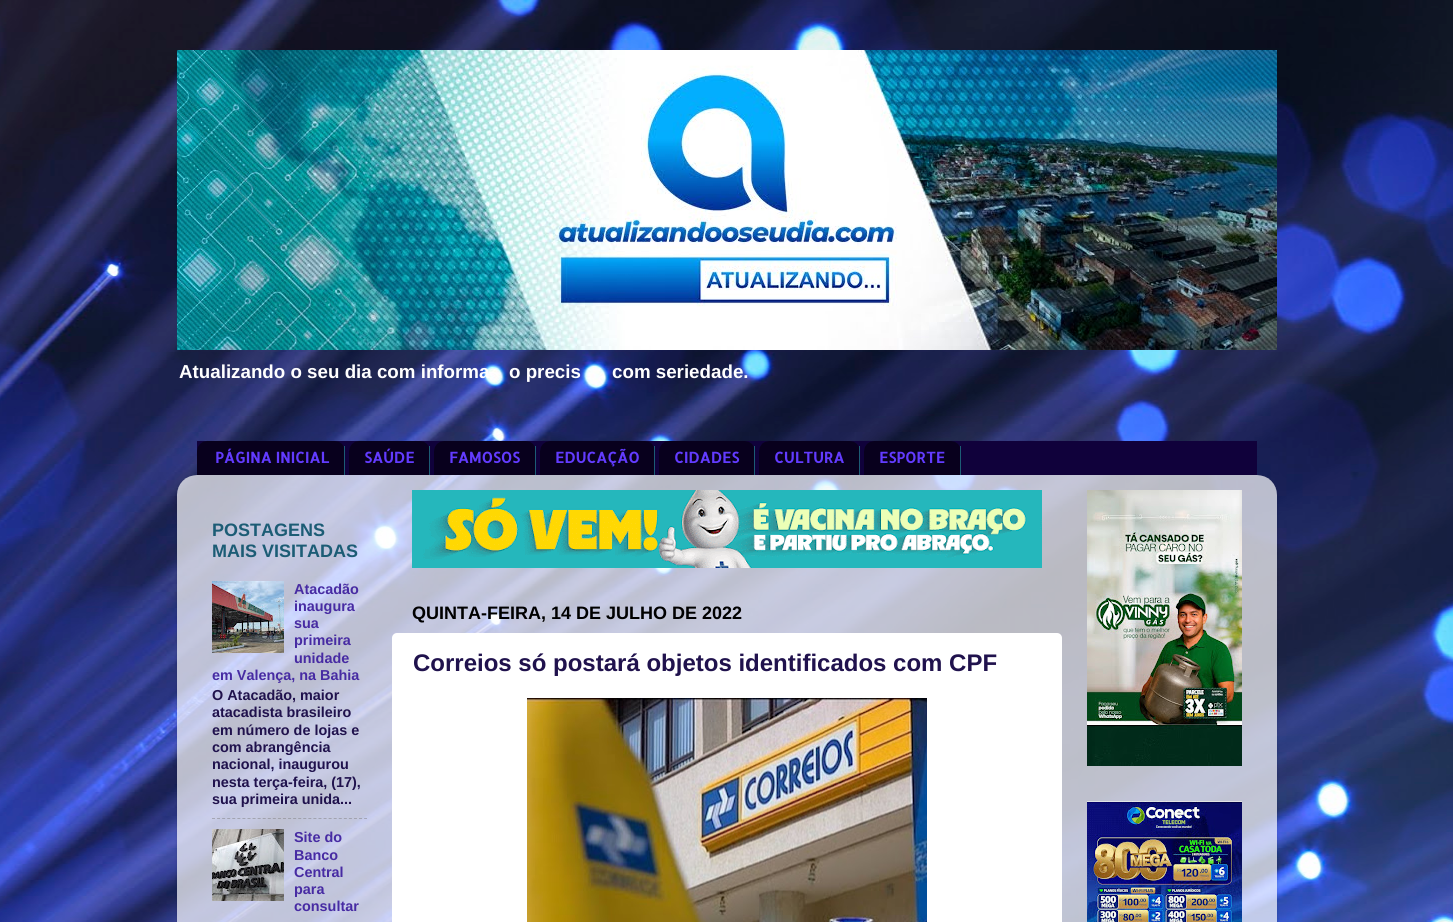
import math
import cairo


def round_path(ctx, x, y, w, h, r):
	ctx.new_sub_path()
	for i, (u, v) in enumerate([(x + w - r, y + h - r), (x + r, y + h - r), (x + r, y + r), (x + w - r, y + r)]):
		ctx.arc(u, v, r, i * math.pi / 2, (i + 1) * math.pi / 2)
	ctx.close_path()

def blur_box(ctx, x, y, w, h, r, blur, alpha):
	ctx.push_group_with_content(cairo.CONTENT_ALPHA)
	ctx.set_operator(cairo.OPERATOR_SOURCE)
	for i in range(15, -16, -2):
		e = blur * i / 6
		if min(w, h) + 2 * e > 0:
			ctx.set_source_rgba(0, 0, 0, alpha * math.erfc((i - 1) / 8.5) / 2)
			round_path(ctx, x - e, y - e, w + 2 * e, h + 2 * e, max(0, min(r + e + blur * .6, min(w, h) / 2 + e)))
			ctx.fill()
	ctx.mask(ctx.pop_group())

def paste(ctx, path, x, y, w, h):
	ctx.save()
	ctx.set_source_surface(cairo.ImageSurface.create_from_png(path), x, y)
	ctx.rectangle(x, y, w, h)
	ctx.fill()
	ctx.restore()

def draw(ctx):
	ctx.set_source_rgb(1, 1, 1)
	ctx.paint()
	paste(ctx, 'media/1.png', 0, 0, 1453, 922)
	paste(ctx, 'media/2.png', 177, 50, 1100, 300)
	ctx.select_font_face('Liberation Sans', cairo.FONT_SLANT_NORMAL, cairo.FONT_WEIGHT_BOLD)
	ctx.set_font_size(18.75)
	ctx.set_source_rgb(1, 1, 1)
	for x, y, s in [
		(179, 378, 'Atualizando o seu dia com informa'),
		(509, 378, 'o precis'),
		(612, 378, 'com seriedade.'),
	]:
		ctx.move_to(x, y)
		ctx.show_text(s)
	ctx.set_source_rgb(0.063, 0.004, 0.231)
	ctx.rectangle(197, 441, 1060, 34)
	ctx.fill()
	paste(ctx, 'media/3.png', 197, 441, 147, 34)
	ctx.set_source_rgb(0.11, 0.361, 0.459)
	ctx.rectangle(344, 446, 1, 29)
	ctx.fill()
	ctx.select_font_face('Allerta', cairo.FONT_SLANT_NORMAL, cairo.FONT_WEIGHT_BOLD)
	ctx.set_font_size(15)
	ctx.set_source_rgb(0.384, 0.231, 1)
	ctx.move_to(215, 463)
	ctx.show_text('PÁGINA INICIAL')
	paste(ctx, 'media/4.png', 349, 441, 80, 34)
	ctx.set_source_rgb(0.11, 0.361, 0.459)
	ctx.rectangle(429, 446, 1, 29)
	ctx.fill()
	ctx.set_source_rgb(0.384, 0.231, 1)
	ctx.move_to(364, 463)
	ctx.show_text('SAÚDE')
	paste(ctx, 'media/5.png', 434, 441, 101, 34)
	ctx.set_source_rgb(0.11, 0.361, 0.459)
	ctx.rectangle(535, 446, 1, 29)
	ctx.fill()
	ctx.set_source_rgb(0.384, 0.231, 1)
	ctx.move_to(449, 463)
	ctx.show_text('FAMOSOS')
	paste(ctx, 'media/6.png', 540, 441, 114, 34)
	ctx.set_source_rgb(0.11, 0.361, 0.459)
	ctx.rectangle(654, 446, 1, 29)
	ctx.fill()
	ctx.set_source_rgb(0.384, 0.231, 1)
	ctx.move_to(555, 463)
	ctx.show_text('EDUCAÇÃO')
	paste(ctx, 'media/7.png', 659, 441, 95, 34)
	ctx.set_source_rgb(0.11, 0.361, 0.459)
	ctx.rectangle(754, 446, 1, 29)
	ctx.fill()
	ctx.set_source_rgb(0.384, 0.231, 1)
	ctx.move_to(674, 463)
	ctx.show_text('CIDADES')
	paste(ctx, 'media/8.png', 759, 441, 100, 34)
	ctx.set_source_rgb(0.11, 0.361, 0.459)
	ctx.rectangle(859, 446, 1, 29)
	ctx.fill()
	ctx.set_source_rgb(0.384, 0.231, 1)
	ctx.move_to(774, 463)
	ctx.show_text('CULTURA')
	paste(ctx, 'media/9.png', 864, 441, 96, 34)
	ctx.set_source_rgb(0.11, 0.361, 0.459)
	ctx.rectangle(960, 446, 1, 29)
	ctx.fill()
	ctx.set_source_rgb(0.384, 0.231, 1)
	ctx.move_to(879, 463)
	ctx.show_text('ESPORTE')
	ctx.save()
	ctx.set_fill_rule(cairo.FILL_RULE_EVEN_ODD)
	ctx.new_path()
	ctx.move_to(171, 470)
	ctx.line_to(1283, 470)
	ctx.line_to(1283, 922)
	ctx.line_to(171, 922)
	ctx.close_path()
	ctx.move_to(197, 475)
	ctx.line_to(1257, 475)
	ctx.curve_to(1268, 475, 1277, 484, 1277, 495)
	ctx.line_to(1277, 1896)
	ctx.line_to(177, 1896)
	ctx.line_to(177, 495)
	ctx.curve_to(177, 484, 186, 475, 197, 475)
	ctx.close_path()
	ctx.clip()
	ctx.set_source_rgb(0, 0, 0)
	blur_box(ctx, 177, 476, 1100, 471, 20, 1.5, 0.15)
	ctx.restore()
	paste(ctx, 'media/10.png', 177, 475, 1100, 447)
	ctx.select_font_face('Liberation Sans', cairo.FONT_SLANT_NORMAL, cairo.FONT_WEIGHT_BOLD)
	ctx.set_font_size(18)
	ctx.set_source_rgb(0.11, 0.361, 0.459)
	ctx.move_to(212, 536)
	ctx.show_text('POSTAGENS')
	ctx.move_to(212, 557)
	ctx.show_text('MAIS VISITADAS')
	paste(ctx, 'media/11.png', 212, 581, 72, 72)
	ctx.set_font_size(14.4)
	ctx.set_source_rgb(0.278, 0.169, 0.639)
	for x, y, s in [
		(294, 594, 'Atacadão'),
		(294, 611, 'inaugura'),
		(294, 628, 'sua'),
		(294, 645, 'primeira'),
		(294, 663, 'unidade'),
		(212, 680, 'em Valença, na Bahia'),
	]:
		ctx.move_to(x, y)
		ctx.show_text(s)
	ctx.set_source_rgb(0.125, 0.071, 0.302)
	for x, y, s in [
		(212, 700, 'O Atacadão, maior'),
		(212, 717, 'atacadista brasileiro'),
		(212, 735, 'em número de lojas e'),
		(212, 752, 'com abrangência'),
		(212, 769, 'nacional, inaugurou'),
		(212, 787, 'nesta terça-feira, (17),'),
		(212, 804, 'sua primeira unida...'),
	]:
		ctx.move_to(x, y)
		ctx.show_text(s)
	ctx.new_path()
	ctx.move_to(212, 818.5)
	ctx.line_to(367, 818.5)
	ctx.set_source_rgba(0.502, 0.502, 0.502, 0.5)
	ctx.set_line_width(1)
	ctx.set_dash([3, 2.07])
	ctx.stroke()
	paste(ctx, 'media/12.png', 212, 829, 72, 72)
	ctx.set_source_rgb(0.278, 0.169, 0.639)
	for x, y, s in [
		(294, 842, 'Site do'),
		(294, 860, 'Banco'),
		(294, 877, 'Central'),
		(294, 894, 'para'),
		(294, 911, 'consultar'),
	]:
		ctx.move_to(x, y)
		ctx.show_text(s)
	paste(ctx, 'media/13.png', 412, 490, 630, 78)
	ctx.set_font_size(18)
	ctx.set_source_rgb(0, 0, 0)
	ctx.move_to(412, 619)
	ctx.show_text('QUINTA-FEIRA, 14 DE JULHO DE 2022')
	ctx.set_source_rgb(1, 1, 1)
	round_path(ctx, 392, 633, 670, 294, 5)
	ctx.fill()
	ctx.set_font_size(24)
	ctx.set_source_rgb(0.125, 0.071, 0.302)
	ctx.move_to(413, 671)
	ctx.show_text('Correios só postará objetos identificados com CPF')
	paste(ctx, 'media/14.png', 527, 698, 400, 224)
	paste(ctx, 'media/15.png', 1087, 490, 155, 276)
	paste(ctx, 'media/16.png', 1087, 801, 155, 121)


surface = cairo.ImageSurface(cairo.FORMAT_RGB24, 1453, 922)
ctx = cairo.Context(surface)
options = cairo.FontOptions()
options.set_hint_metrics(cairo.HINT_METRICS_OFF)
options.set_hint_style(cairo.HINT_STYLE_NONE)
ctx.set_font_options(options)
ctx.set_miter_limit(4)
draw(ctx)
surface.write_to_png('image.png')
